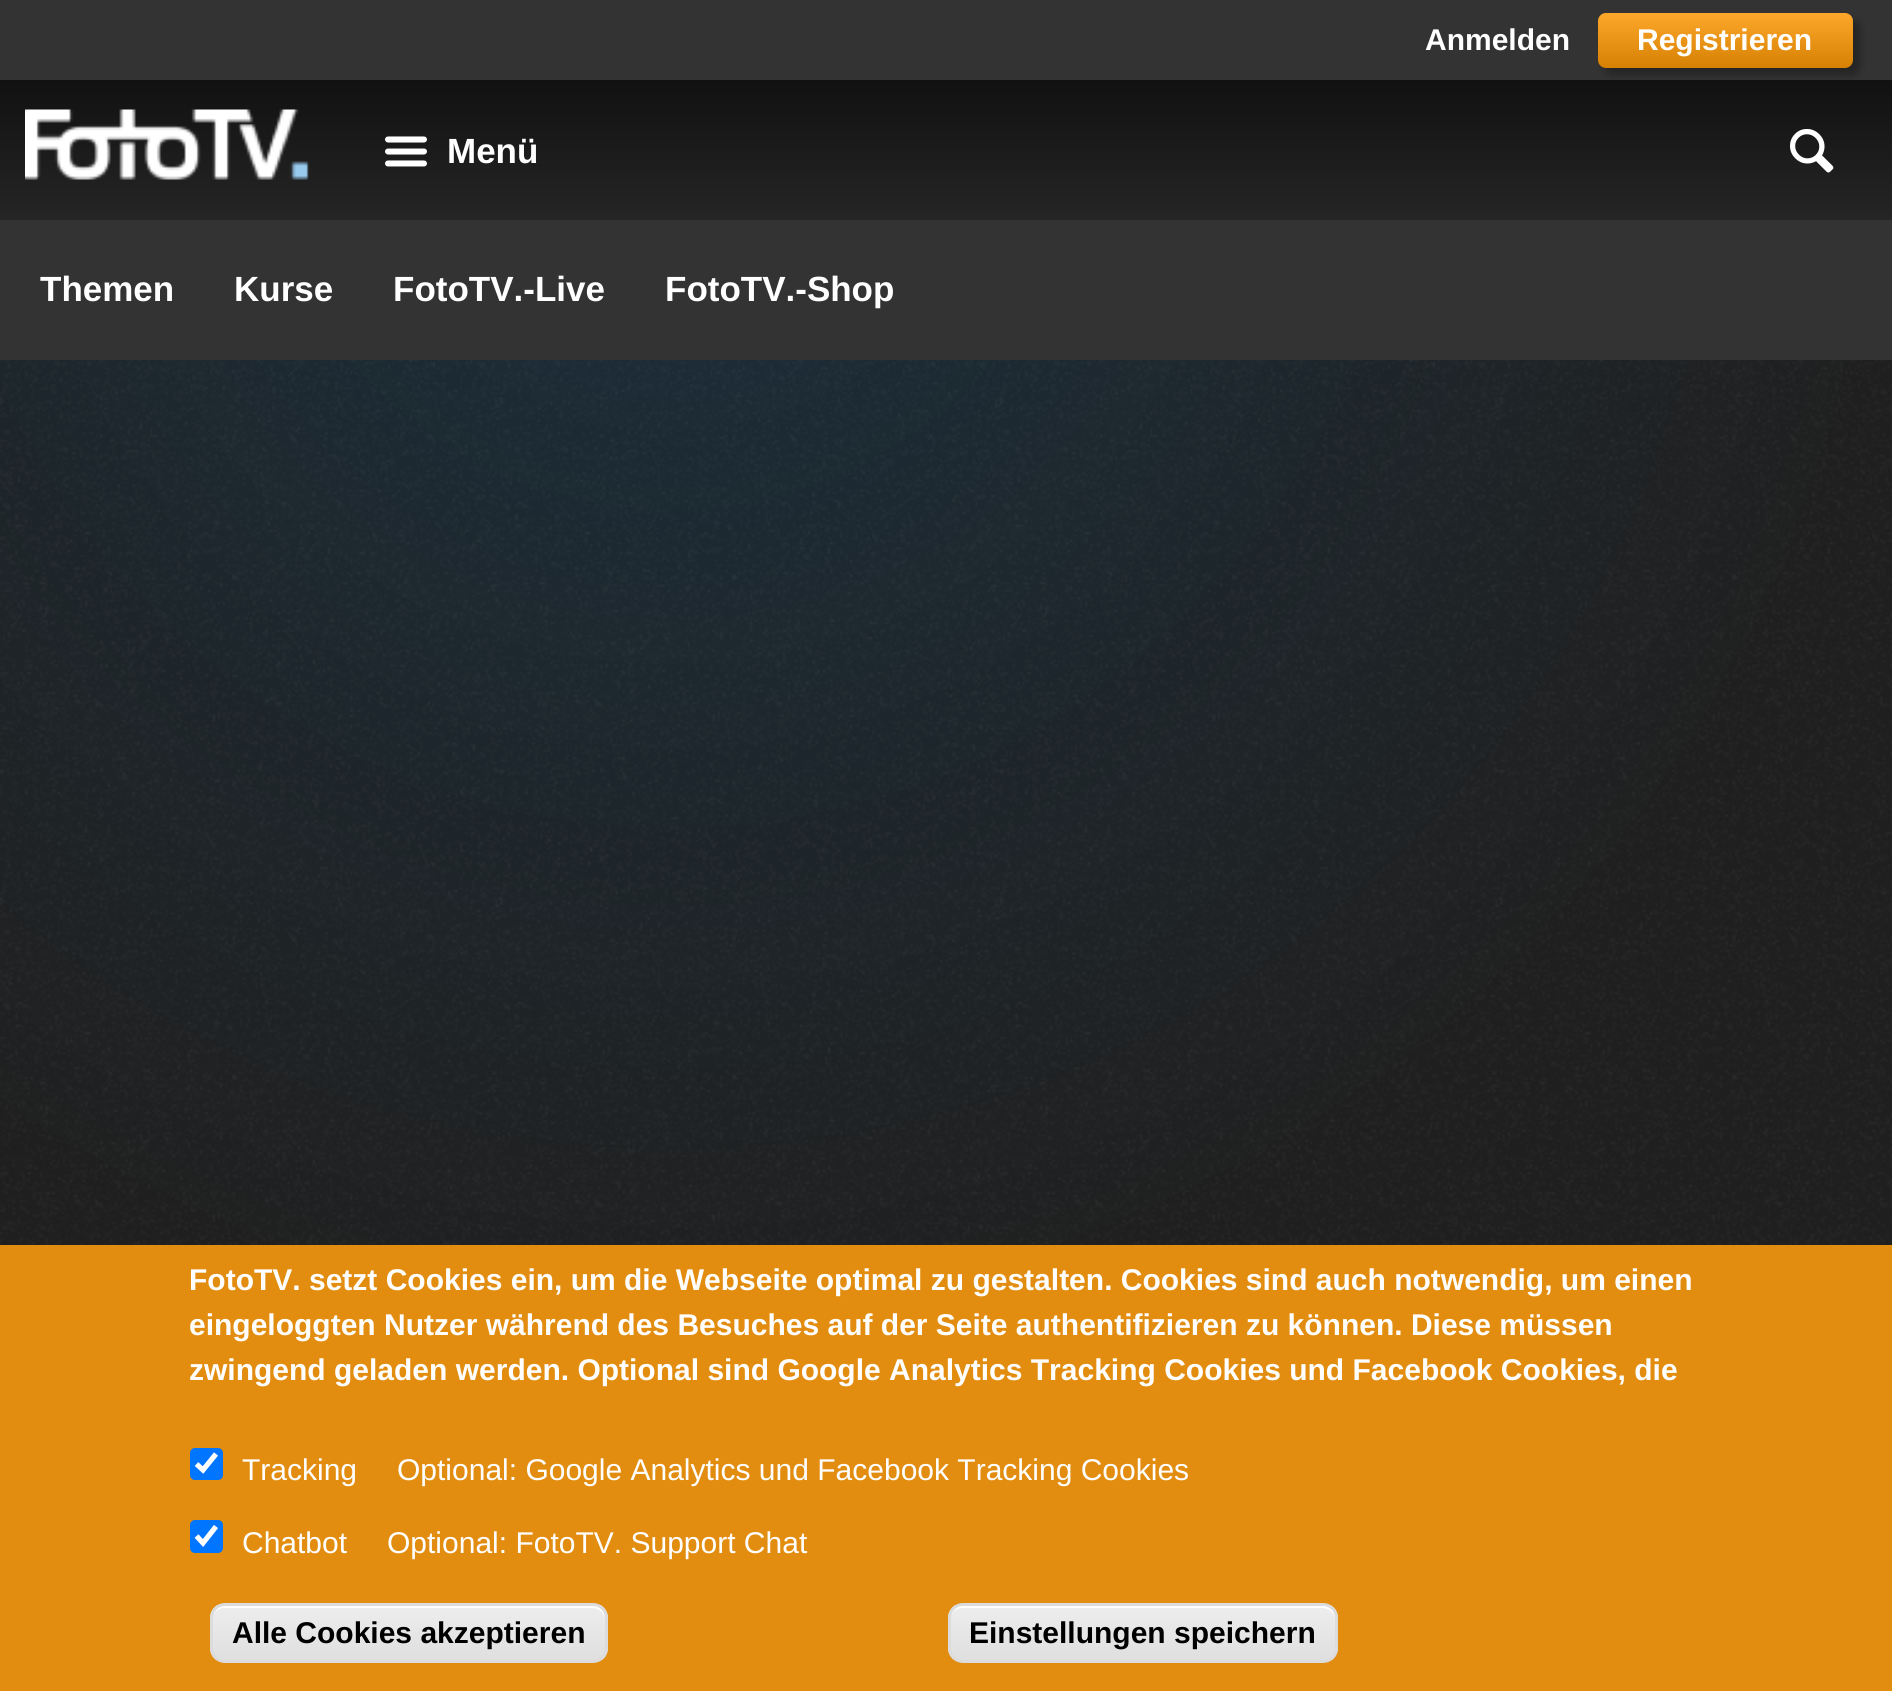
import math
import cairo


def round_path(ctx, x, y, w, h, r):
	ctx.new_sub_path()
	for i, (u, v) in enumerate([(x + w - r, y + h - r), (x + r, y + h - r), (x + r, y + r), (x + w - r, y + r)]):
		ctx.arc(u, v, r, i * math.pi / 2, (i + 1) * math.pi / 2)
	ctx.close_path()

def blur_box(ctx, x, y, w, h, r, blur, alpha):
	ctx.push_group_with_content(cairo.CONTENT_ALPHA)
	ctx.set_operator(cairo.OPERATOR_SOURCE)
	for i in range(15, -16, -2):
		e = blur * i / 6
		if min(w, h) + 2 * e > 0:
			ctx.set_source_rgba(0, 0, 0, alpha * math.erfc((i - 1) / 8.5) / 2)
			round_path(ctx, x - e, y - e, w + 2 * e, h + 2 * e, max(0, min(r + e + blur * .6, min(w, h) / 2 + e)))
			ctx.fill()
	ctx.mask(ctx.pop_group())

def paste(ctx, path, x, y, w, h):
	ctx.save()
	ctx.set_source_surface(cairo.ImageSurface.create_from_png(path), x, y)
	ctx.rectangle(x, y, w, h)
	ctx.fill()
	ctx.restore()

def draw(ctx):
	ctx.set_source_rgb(1, 1, 1)
	ctx.paint()
	ctx.set_source_rgb(0.2, 0.2, 0.2)
	ctx.rectangle(0, 0, 1892, 80)
	ctx.fill()
	gradient = cairo.LinearGradient(946, 80, 946, 220)
	gradient.add_color_stop_rgba(0, 0.067, 0.067, 0.067, 1)
	gradient.add_color_stop_rgba(1, 0.145, 0.145, 0.145, 1)
	ctx.set_source(gradient)
	ctx.rectangle(0, 80, 1892, 140)
	ctx.fill()
	ctx.select_font_face('Liberation Sans', cairo.FONT_SLANT_NORMAL, cairo.FONT_WEIGHT_BOLD)
	ctx.set_font_size(30)
	ctx.set_source_rgb(1, 1, 1)
	ctx.move_to(1425, 50)
	ctx.show_text('Anmelden')
	paste(ctx, 'media/1.png', 385, 136, 42, 31)
	ctx.set_font_size(35)
	ctx.move_to(447, 163)
	ctx.show_text('Menü')
	ctx.set_source_rgb(0, 0, 0)
	blur_box(ctx, 1605, 20, 255, 55, 8, 4, 0.3)
	gradient = cairo.LinearGradient(1725, 12, 1725, 68)
	gradient.add_color_stop_rgba(0, 0.996, 0.659, 0.169, 1)
	gradient.add_color_stop_rgba(1, 0.839, 0.506, 0.016, 1)
	ctx.set_source(gradient)
	round_path(ctx, 1598, 13, 255, 55, 8)
	ctx.fill()
	ctx.set_font_size(30)
	ctx.set_source_rgb(1, 1, 1)
	ctx.move_to(1637, 50)
	ctx.show_text('Registrieren')
	paste(ctx, 'media/2.png', 25, 109, 284, 71)
	paste(ctx, 'media/3.png', 1790, 129, 44, 44)
	ctx.set_source_rgb(0.2, 0.2, 0.2)
	ctx.rectangle(0, 220, 1892, 140)
	ctx.fill()
	ctx.set_font_size(35)
	ctx.set_source_rgb(1, 1, 1)
	for x, y, s in [
		(40, 301, 'Themen'),
		(234, 301, 'Kurse'),
		(393, 301, 'FotoTV.-Live'),
		(665, 301, 'FotoTV.-Shop'),
	]:
		ctx.move_to(x, y)
		ctx.show_text(s)
	gradient = cairo.RadialGradient(0, 0, 0, 0, 0, 1)
	gradient.set_matrix(cairo.Matrix(1 / 1236, 0, 0, 1 / 1266, -1 * 672 / 1236, -1 * 74 / 1266))
	gradient.add_color_stop_rgba(0, 0.106, 0.184, 0.235, 1)
	gradient.add_color_stop_rgba(1, 0.122, 0.122, 0.122, 1)
	ctx.set_source(gradient)
	ctx.rectangle(0, 360, 1892, 885)
	ctx.fill()
	paste(ctx, 'media/4.png', 0, 360, 1892, 885)
	ctx.set_source_rgb(0.886, 0.553, 0.063)
	ctx.rectangle(0, 1245, 1892, 446)
	ctx.fill()
	ctx.set_font_size(30)
	ctx.set_source_rgb(1, 1, 1)
	for x, y, s in [
		(189, 1290, 'FotoTV. setzt Cookies ein, um die Webseite optimal zu gestalten. Cookies sind auch notwendig, um einen'),
		(189, 1335, 'eingeloggten Nutzer während des Besuches auf der Seite authentifizieren zu können. Diese müssen'),
		(189, 1380, 'zwingend geladen werden. Optional sind Google Analytics Tracking Cookies und Facebook Cookies, die'),
	]:
		ctx.move_to(x, y)
		ctx.show_text(s)
	ctx.set_source_rgb(0, 0.459, 1)
	round_path(ctx, 190, 1448, 33, 32, 5)
	ctx.fill()
	ctx.new_path()
	ctx.move_to(196.5, 1464)
	ctx.line_to(203, 1470)
	ctx.line_to(216, 1454)
	ctx.set_source_rgb(1, 1, 1)
	ctx.set_line_width(5.2)
	ctx.stroke()
	ctx.select_font_face('Liberation Sans')
	ctx.move_to(242, 1480)
	ctx.show_text('Tracking')
	ctx.move_to(397, 1480)
	ctx.show_text('Optional: Google Analytics und Facebook Tracking Cookies')
	ctx.set_source_rgb(0, 0.459, 1)
	round_path(ctx, 190, 1520, 33, 33, 5)
	ctx.fill()
	ctx.new_path()
	ctx.move_to(196.5, 1536)
	ctx.line_to(203, 1543)
	ctx.line_to(216, 1526.5)
	ctx.set_source_rgb(1, 1, 1)
	ctx.stroke()
	ctx.move_to(242, 1553)
	ctx.show_text('Chatbot')
	ctx.move_to(387, 1553)
	ctx.show_text('Optional: FotoTV. Support Chat')
	ctx.save()
	round_path(ctx, 948, 1603, 390, 60, 15)
	ctx.clip()
	gradient = cairo.LinearGradient(1143, 1605, 1143, 1660)
	gradient.add_color_stop_rgba(0.05, 0.929, 0.929, 0.929, 1)
	gradient.add_color_stop_rgba(1, 0.875, 0.875, 0.875, 1)
	ctx.set_source(gradient)
	ctx.rectangle(948, 1605, 390, 55)
	ctx.fill()
	ctx.restore()
	ctx.new_path()
	ctx.move_to(962, 1608)
	ctx.line_to(1322, 1608)
	ctx.curve_to(1329, 1608, 1335, 1613, 1335, 1620)
	ctx.line_to(1335, 1618)
	ctx.curve_to(1335, 1611, 1329, 1605, 1322, 1605)
	ctx.line_to(963, 1605)
	ctx.curve_to(956, 1605, 950, 1611, 950, 1618)
	ctx.line_to(950, 1620)
	ctx.curve_to(950, 1613, 956, 1608, 962, 1608)
	ctx.close_path()
	ctx.fill()
	round_path(ctx, 949.5, 1604.5, 387, 57, 13.5)
	ctx.set_source_rgb(0.863, 0.863, 0.863)
	ctx.set_line_width(3)
	ctx.stroke()
	ctx.select_font_face('Liberation Sans', cairo.FONT_SLANT_NORMAL, cairo.FONT_WEIGHT_BOLD)
	ctx.set_source_rgb(0, 0, 0)
	ctx.move_to(969, 1643)
	ctx.show_text('Einstellungen speichern')
	ctx.save()
	round_path(ctx, 210, 1603, 398, 60, 15)
	ctx.clip()
	gradient = cairo.LinearGradient(409, 1605, 409, 1660)
	gradient.add_color_stop_rgba(0.05, 0.929, 0.929, 0.929, 1)
	gradient.add_color_stop_rgba(1, 0.875, 0.875, 0.875, 1)
	ctx.set_source(gradient)
	ctx.rectangle(210, 1605, 398, 55)
	ctx.fill()
	ctx.restore()
	ctx.set_source_rgb(1, 1, 1)
	ctx.new_path()
	ctx.move_to(225, 1608)
	ctx.line_to(592, 1608)
	ctx.curve_to(599, 1608, 605, 1613, 605, 1620)
	ctx.line_to(605, 1618)
	ctx.curve_to(605, 1611, 599, 1605, 592, 1605)
	ctx.line_to(226, 1605)
	ctx.curve_to(220, 1605, 215, 1609, 214, 1614)
	ctx.curve_to(216, 1610, 220, 1608, 225, 1608)
	ctx.close_path()
	ctx.fill()
	round_path(ctx, 211.5, 1604.5, 395, 57, 13.5)
	ctx.set_source_rgb(0.863, 0.863, 0.863)
	ctx.stroke()
	ctx.set_source_rgb(0, 0, 0)
	ctx.move_to(232, 1643)
	ctx.show_text('Alle Cookies akzeptieren')


surface = cairo.ImageSurface(cairo.FORMAT_RGB24, 1892, 1691)
ctx = cairo.Context(surface)
options = cairo.FontOptions()
options.set_hint_metrics(cairo.HINT_METRICS_OFF)
options.set_hint_style(cairo.HINT_STYLE_NONE)
ctx.set_font_options(options)
ctx.set_miter_limit(4)
draw(ctx)
surface.write_to_png('image.png')
